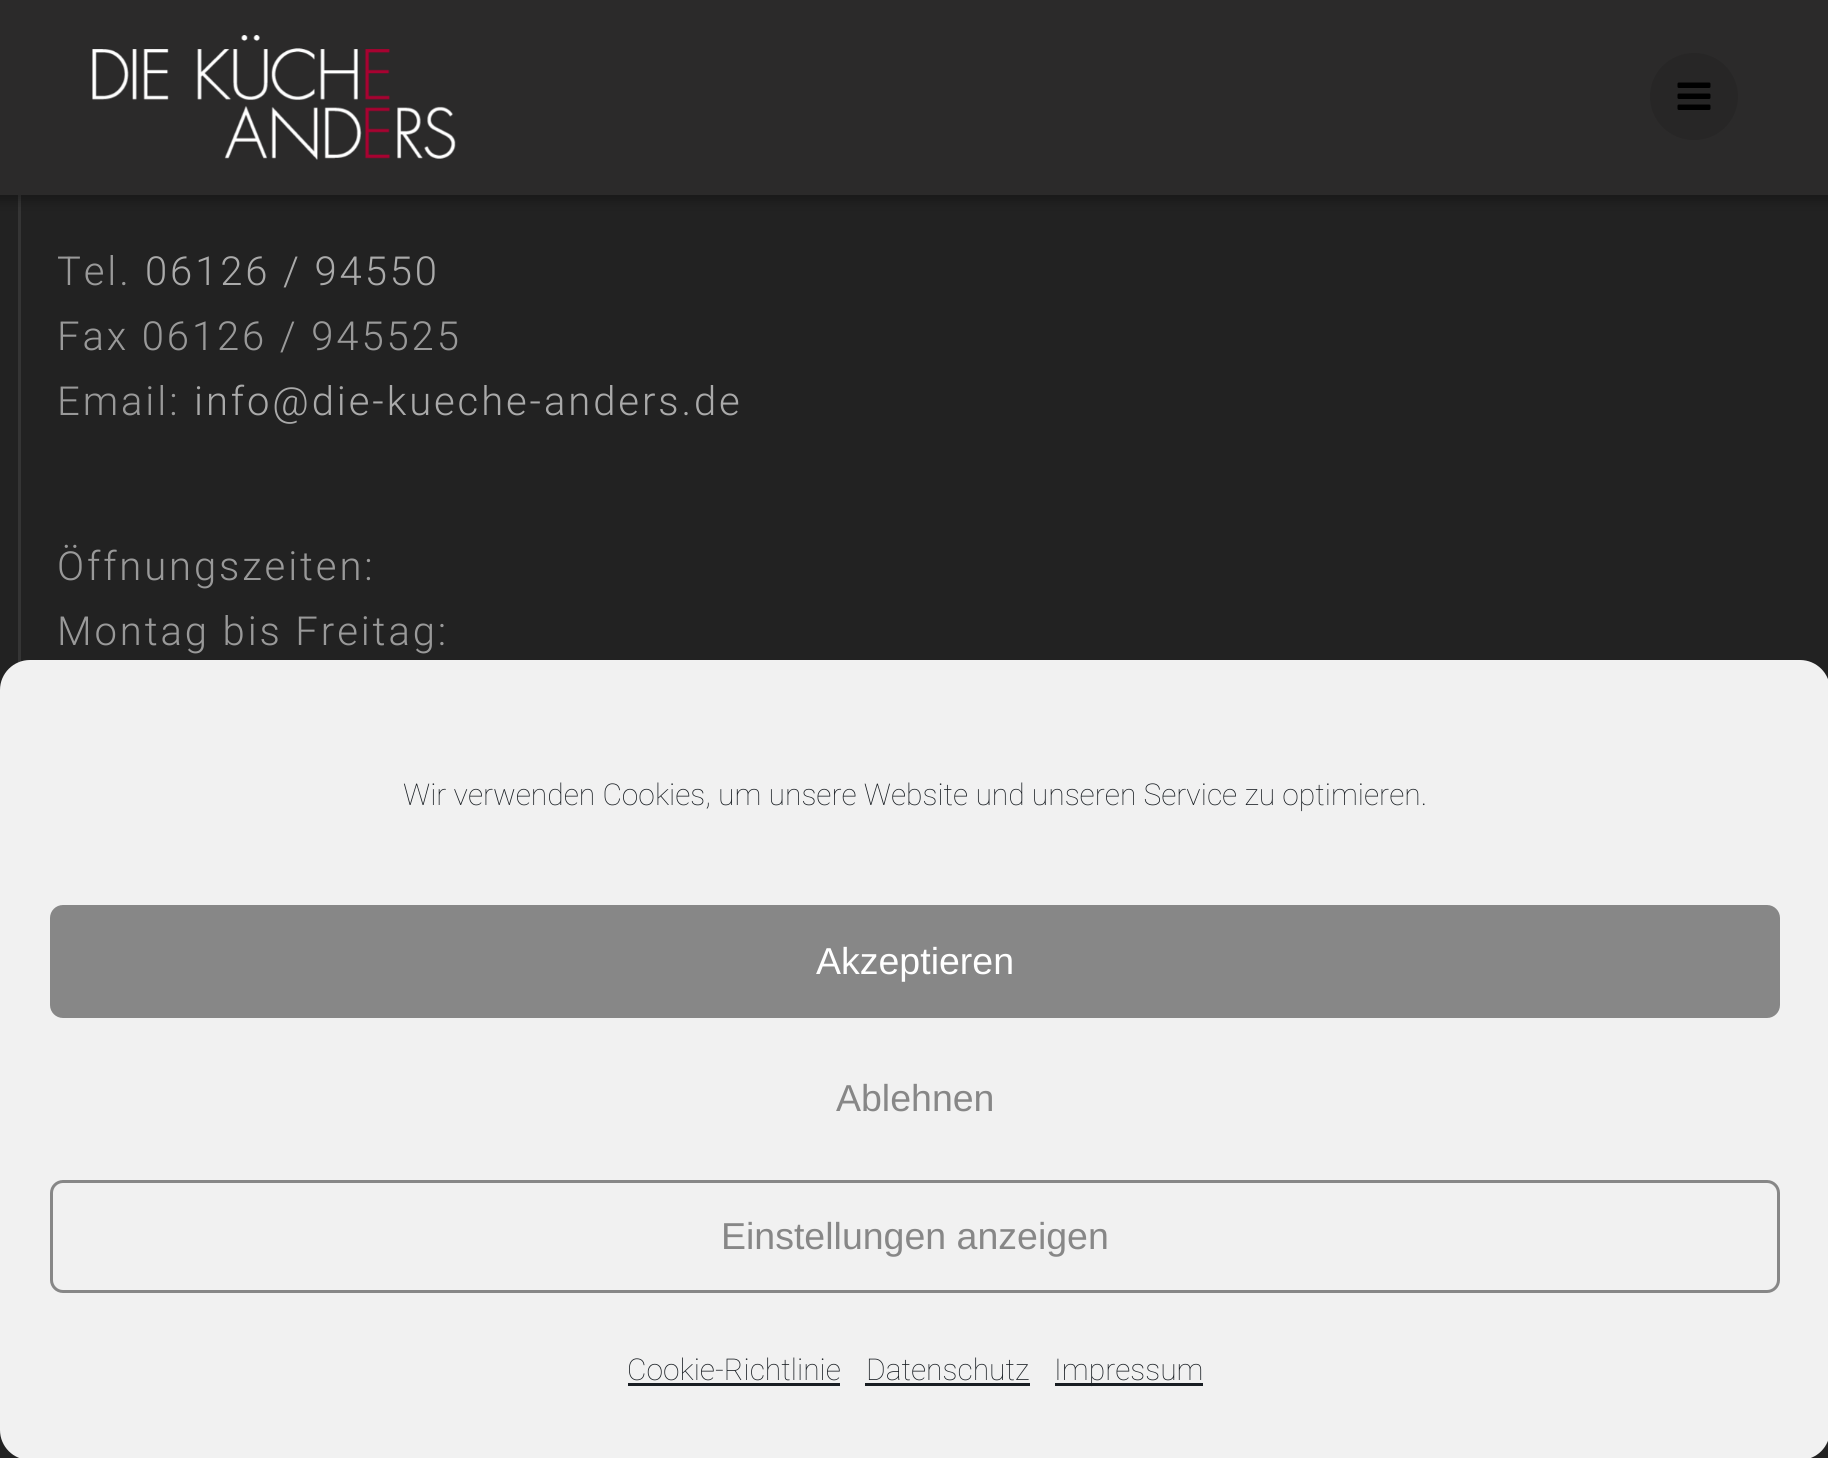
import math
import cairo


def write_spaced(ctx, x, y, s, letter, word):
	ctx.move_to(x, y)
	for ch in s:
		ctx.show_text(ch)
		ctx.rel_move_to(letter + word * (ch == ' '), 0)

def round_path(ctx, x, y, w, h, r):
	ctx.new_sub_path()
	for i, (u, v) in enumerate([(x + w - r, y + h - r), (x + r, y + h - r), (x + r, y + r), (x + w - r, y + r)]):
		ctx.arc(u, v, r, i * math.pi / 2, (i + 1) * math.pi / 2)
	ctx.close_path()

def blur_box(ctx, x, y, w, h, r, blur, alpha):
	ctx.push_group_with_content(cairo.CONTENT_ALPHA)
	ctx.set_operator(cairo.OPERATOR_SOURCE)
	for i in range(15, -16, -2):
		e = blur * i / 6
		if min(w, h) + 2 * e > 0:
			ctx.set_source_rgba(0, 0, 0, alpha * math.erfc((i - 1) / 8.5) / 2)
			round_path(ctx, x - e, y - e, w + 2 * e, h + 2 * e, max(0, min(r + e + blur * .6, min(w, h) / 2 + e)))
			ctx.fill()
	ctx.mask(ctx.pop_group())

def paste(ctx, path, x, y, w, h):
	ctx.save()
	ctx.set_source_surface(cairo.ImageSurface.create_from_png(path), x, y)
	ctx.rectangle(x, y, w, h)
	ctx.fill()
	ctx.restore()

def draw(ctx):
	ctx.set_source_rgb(0.133, 0.133, 0.133)
	ctx.paint()
	ctx.set_source_rgb(0.208, 0.208, 0.208)
	ctx.rectangle(18, 195, 3, 468)
	ctx.fill()
	ctx.set_source_rgb(0, 0, 0)
	blur_box(ctx, -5, -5, 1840, 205, 0, 6, 0.33)
	ctx.set_source_rgb(0.169, 0.165, 0.165)
	ctx.rectangle(0, 0, 1828, 195)
	ctx.fill()
	paste(ctx, 'media/1.png', 92, 35, 364, 125)
	ctx.set_source_rgb(0.153, 0.149, 0.149)
	round_path(ctx, 1650, 53, 88, 87, 43.5)
	ctx.fill()
	paste(ctx, 'media/2.png', 1677, 82, 34, 28)
	ctx.select_font_face('Roboto Light')
	ctx.set_font_size(40)
	ctx.set_source_rgb(0.6, 0.6, 0.6)
	write_spaced(ctx, 57, 285, 'Tel.', 2.9, 0)
	ctx.set_source_rgb(0.667, 0.667, 0.667)
	write_spaced(ctx, 145, 285, '06126 / 94550', 2.9, 0)
	ctx.set_source_rgb(0.6, 0.6, 0.6)
	write_spaced(ctx, 57, 350, 'Fax 06126 / 945525', 2.9, 0)
	write_spaced(ctx, 57, 415, 'Email:', 2.9, 0)
	ctx.set_source_rgb(0.667, 0.667, 0.667)
	write_spaced(ctx, 194, 415, 'info@die-kueche-anders.de', 2.9, 0)
	ctx.set_source_rgb(0.6, 0.6, 0.6)
	write_spaced(ctx, 57, 580, 'Öffnungszeiten:', 2.9, 0)
	write_spaced(ctx, 57, 645, 'Montag bis Freitag:', 2.9, 0)
	ctx.set_source_rgb(0.945, 0.945, 0.945)
	round_path(ctx, 0, 660, 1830, 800, 30)
	ctx.fill()
	ctx.select_font_face('Roboto Thin')
	ctx.set_font_size(30)
	ctx.set_source_rgb(0.098, 0.118, 0.137)
	ctx.move_to(403, 805)
	ctx.show_text('Wir verwenden Cookies, um unsere Website und unseren Service zu optimieren.')
	ctx.set_source_rgb(0.529, 0.529, 0.529)
	round_path(ctx, 51.5, 906.5, 1727, 110, 11.5)
	ctx.fill_preserve()
	ctx.set_line_width(3)
	ctx.stroke()
	ctx.select_font_face('Liberation Sans')
	ctx.set_font_size(37.5)
	ctx.set_source_rgb(1, 1, 1)
	ctx.move_to(816, 974)
	ctx.show_text('Akzeptieren')
	ctx.set_source_rgb(0.529, 0.529, 0.529)
	ctx.move_to(836, 1111)
	ctx.show_text('Ablehnen')
	round_path(ctx, 51.5, 1181.5, 1727, 110, 11.5)
	ctx.stroke()
	ctx.move_to(721, 1249)
	ctx.show_text('Einstellungen anzeigen')
	ctx.select_font_face('Roboto Thin')
	ctx.set_font_size(30)
	ctx.set_source_rgb(0.098, 0.118, 0.137)
	ctx.move_to(627, 1380)
	ctx.show_text('Cookie-Richtlinie')
	ctx.rectangle(628, 1383, 212, 3)
	ctx.fill()
	ctx.move_to(866, 1380)
	ctx.show_text('Datenschutz')
	ctx.rectangle(865, 1383, 165, 3)
	ctx.fill()
	ctx.rectangle(1055, 1383, 148, 3)
	ctx.fill()
	ctx.move_to(1054, 1380)
	ctx.show_text('Impressum')


surface = cairo.ImageSurface(cairo.FORMAT_RGB24, 1828, 1458)
ctx = cairo.Context(surface)
options = cairo.FontOptions()
options.set_hint_metrics(cairo.HINT_METRICS_OFF)
options.set_hint_style(cairo.HINT_STYLE_NONE)
ctx.set_font_options(options)
ctx.set_miter_limit(4)
draw(ctx)
surface.write_to_png('image.png')
